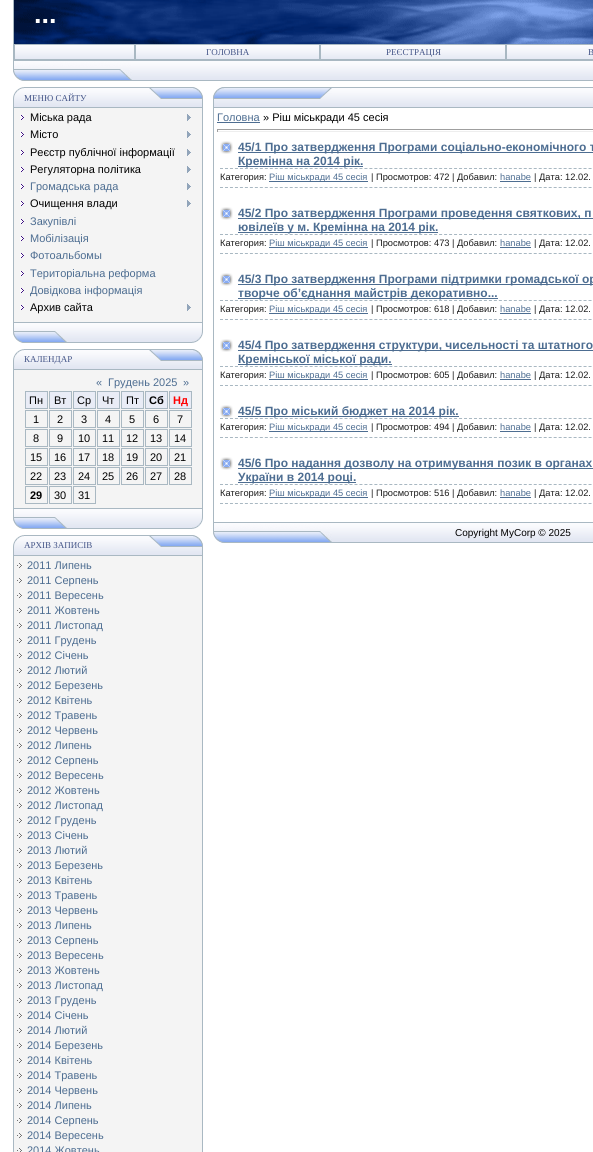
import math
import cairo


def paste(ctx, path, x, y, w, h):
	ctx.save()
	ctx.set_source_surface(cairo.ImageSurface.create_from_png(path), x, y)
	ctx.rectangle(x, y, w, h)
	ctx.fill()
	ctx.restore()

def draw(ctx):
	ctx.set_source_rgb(1, 1, 1)
	ctx.paint()
	ctx.set_source_rgb(0.663, 0.722, 0.761)
	ctx.rectangle(13, 0, 1, 60)
	ctx.fill()
	paste(ctx, 'media/1.png', 14, 0, 579, 44)
	ctx.select_font_face('Liberation Sans', cairo.FONT_SLANT_NORMAL, cairo.FONT_WEIGHT_BOLD)
	ctx.set_font_size(27)
	ctx.set_source_rgb(1, 1, 1)
	ctx.move_to(34, 23)
	ctx.show_text('...')
	paste(ctx, 'media/2.png', 15, 45, 119, 14)
	ctx.rectangle(14.5, 44.5, 120, 15)
	ctx.set_source_rgb(0.663, 0.722, 0.761)
	ctx.set_line_width(1)
	ctx.stroke()
	paste(ctx, 'media/3.png', 136, 45, 183, 14)
	ctx.rectangle(135.5, 44.5, 184, 15)
	ctx.stroke()
	ctx.select_font_face('Liberation Serif')
	ctx.set_font_size(9)
	ctx.set_source_rgb(0.267, 0.333, 0.533)
	ctx.move_to(206, 55)
	ctx.show_text('ГОЛОВНА')
	paste(ctx, 'media/4.png', 321, 45, 184, 14)
	ctx.rectangle(320.5, 44.5, 185, 15)
	ctx.set_source_rgb(0.663, 0.722, 0.761)
	ctx.stroke()
	ctx.set_source_rgb(0.267, 0.333, 0.533)
	ctx.move_to(386, 55)
	ctx.show_text('РЕЄСТРАЦІЯ')
	paste(ctx, 'media/5.png', 507, 45, 86, 14)
	ctx.rectangle(506.5, 44.5, 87, 15)
	ctx.set_source_rgb(0.663, 0.722, 0.761)
	ctx.stroke()
	ctx.set_source_rgb(0.267, 0.333, 0.533)
	ctx.move_to(588, 55)
	ctx.show_text('В')
	paste(ctx, 'media/6.png', 13, 60, 119, 21)
	paste(ctx, 'media/7.png', 132, 60, 461, 21)
	paste(ctx, 'media/8.png', 13, 87, 11, 21)
	paste(ctx, 'media/9.png', 24, 87, 125, 21)
	ctx.move_to(24, 101)
	ctx.show_text('МЕНЮ САЙТУ')
	paste(ctx, 'media/10.png', 149, 87, 54, 21)
	ctx.set_source_rgb(0.957, 0.957, 0.957)
	ctx.rectangle(14, 108, 188, 214)
	ctx.fill()
	ctx.set_source_rgb(0.663, 0.722, 0.761)
	ctx.rectangle(202, 108, 1, 214)
	ctx.rectangle(13, 108, 1, 214)
	ctx.fill()
	paste(ctx, 'media/11.png', 20, 115, 4, 5)
	ctx.select_font_face('Liberation Sans')
	ctx.set_font_size(11)
	ctx.set_source_rgb(0, 0, 0)
	ctx.move_to(30, 121)
	ctx.show_text('Міська рада')
	paste(ctx, 'media/12.png', 187, 114, 4, 7)
	paste(ctx, 'media/11.png', 20, 132, 4, 5)
	ctx.move_to(30, 138)
	ctx.show_text('Місто')
	paste(ctx, 'media/12.png', 187, 131, 4, 7)
	paste(ctx, 'media/11.png', 20, 150, 4, 5)
	ctx.move_to(30, 156)
	ctx.show_text('Реєстр публічної інформації')
	paste(ctx, 'media/12.png', 187, 149, 4, 7)
	paste(ctx, 'media/11.png', 20, 167, 4, 5)
	ctx.move_to(30, 173)
	ctx.show_text('Регуляторна політика')
	paste(ctx, 'media/12.png', 187, 166, 4, 7)
	paste(ctx, 'media/11.png', 20, 184, 4, 5)
	ctx.set_source_rgb(0.302, 0.427, 0.569)
	ctx.move_to(30, 190)
	ctx.show_text('Громадська рада')
	paste(ctx, 'media/12.png', 187, 183, 4, 7)
	paste(ctx, 'media/11.png', 20, 201, 4, 5)
	ctx.set_source_rgb(0, 0, 0)
	ctx.move_to(30, 207)
	ctx.show_text('Очищення влади')
	paste(ctx, 'media/12.png', 187, 200, 4, 7)
	paste(ctx, 'media/11.png', 20, 219, 4, 5)
	ctx.set_source_rgb(0.302, 0.427, 0.569)
	ctx.move_to(30, 225)
	ctx.show_text('Закупівлі')
	paste(ctx, 'media/11.png', 20, 236, 4, 5)
	ctx.move_to(30, 242)
	ctx.show_text('Мобілізація')
	paste(ctx, 'media/11.png', 20, 253, 4, 5)
	ctx.move_to(30, 259)
	ctx.show_text('Фотоальбомы')
	paste(ctx, 'media/11.png', 20, 271, 4, 5)
	ctx.move_to(30, 277)
	ctx.show_text('Територіальна реформа')
	paste(ctx, 'media/11.png', 20, 288, 4, 5)
	ctx.move_to(30, 294)
	ctx.show_text('Довідкова інформація')
	paste(ctx, 'media/11.png', 20, 305, 4, 5)
	ctx.set_source_rgb(0, 0, 0)
	ctx.move_to(30, 311)
	ctx.show_text('Архив сайта')
	paste(ctx, 'media/12.png', 187, 304, 4, 7)
	paste(ctx, 'media/13.png', 13, 322, 190, 21)
	paste(ctx, 'media/8.png', 13, 349, 11, 21)
	paste(ctx, 'media/9.png', 24, 349, 125, 21)
	ctx.select_font_face('Liberation Serif')
	ctx.set_font_size(9)
	ctx.set_source_rgb(0.267, 0.333, 0.533)
	ctx.move_to(24, 362)
	ctx.show_text('КАЛЕНДАР')
	paste(ctx, 'media/10.png', 149, 349, 54, 21)
	ctx.set_source_rgb(0.957, 0.957, 0.957)
	ctx.rectangle(14, 370, 188, 138)
	ctx.fill()
	ctx.set_source_rgb(0.663, 0.722, 0.761)
	ctx.rectangle(202, 370, 1, 138)
	ctx.rectangle(13, 370, 1, 138)
	ctx.fill()
	ctx.select_font_face('Liberation Sans')
	ctx.set_font_size(11)
	ctx.set_source_rgb(0.302, 0.427, 0.569)
	for x, y, s in [
		(96, 386, '«'),
		(108, 386, 'Грудень 2025'),
		(183, 386, '»'),
	]:
		ctx.move_to(x, y)
		ctx.show_text(s)
	ctx.set_source_rgb(0.914, 0.925, 0.961)
	ctx.rectangle(25.5, 391.5, 22, 17)
	ctx.fill_preserve()
	ctx.set_source_rgb(0.663, 0.722, 0.761)
	ctx.stroke()
	ctx.set_source_rgb(0, 0, 0)
	ctx.move_to(29, 404)
	ctx.show_text('Пн')
	ctx.set_source_rgb(0.914, 0.925, 0.961)
	ctx.rectangle(49.5, 391.5, 22, 17)
	ctx.fill_preserve()
	ctx.set_source_rgb(0.663, 0.722, 0.761)
	ctx.stroke()
	ctx.set_source_rgb(0, 0, 0)
	ctx.move_to(54, 404)
	ctx.show_text('Вт')
	ctx.set_source_rgb(0.914, 0.925, 0.961)
	ctx.rectangle(73.5, 391.5, 22, 17)
	ctx.fill_preserve()
	ctx.set_source_rgb(0.663, 0.722, 0.761)
	ctx.stroke()
	ctx.set_source_rgb(0, 0, 0)
	ctx.move_to(77, 404)
	ctx.show_text('Ср')
	ctx.set_source_rgb(0.914, 0.925, 0.961)
	ctx.rectangle(97.5, 391.5, 22, 17)
	ctx.fill_preserve()
	ctx.set_source_rgb(0.663, 0.722, 0.761)
	ctx.stroke()
	ctx.set_source_rgb(0, 0, 0)
	ctx.move_to(102, 404)
	ctx.show_text('Чт')
	ctx.set_source_rgb(0.914, 0.925, 0.961)
	ctx.rectangle(121.5, 391.5, 22, 17)
	ctx.fill_preserve()
	ctx.set_source_rgb(0.663, 0.722, 0.761)
	ctx.stroke()
	ctx.set_source_rgb(0, 0, 0)
	ctx.move_to(126, 404)
	ctx.show_text('Пт')
	ctx.set_source_rgb(0.914, 0.925, 0.961)
	ctx.rectangle(145.5, 391.5, 22, 17)
	ctx.fill_preserve()
	ctx.set_source_rgb(0.663, 0.722, 0.761)
	ctx.stroke()
	ctx.select_font_face('Liberation Sans', cairo.FONT_SLANT_NORMAL, cairo.FONT_WEIGHT_BOLD)
	ctx.set_source_rgb(0, 0, 0)
	ctx.move_to(149, 404)
	ctx.show_text('Сб')
	ctx.set_source_rgb(0.914, 0.925, 0.961)
	ctx.rectangle(169.5, 391.5, 22, 17)
	ctx.fill_preserve()
	ctx.set_source_rgb(0.663, 0.722, 0.761)
	ctx.stroke()
	ctx.set_source_rgb(1, 0, 0)
	ctx.move_to(173, 404)
	ctx.show_text('Нд')
	ctx.rectangle(25.5, 410.5, 22, 17)
	ctx.set_source_rgb(0.663, 0.722, 0.761)
	ctx.stroke()
	ctx.select_font_face('Liberation Sans')
	ctx.set_source_rgb(0, 0, 0)
	ctx.move_to(33, 423)
	ctx.show_text('1')
	ctx.rectangle(49.5, 410.5, 22, 17)
	ctx.set_source_rgb(0.663, 0.722, 0.761)
	ctx.stroke()
	ctx.set_source_rgb(0, 0, 0)
	ctx.move_to(57, 423)
	ctx.show_text('2')
	ctx.rectangle(73.5, 410.5, 22, 17)
	ctx.set_source_rgb(0.663, 0.722, 0.761)
	ctx.stroke()
	ctx.set_source_rgb(0, 0, 0)
	ctx.move_to(81, 423)
	ctx.show_text('3')
	ctx.rectangle(97.5, 410.5, 22, 17)
	ctx.set_source_rgb(0.663, 0.722, 0.761)
	ctx.stroke()
	ctx.set_source_rgb(0, 0, 0)
	ctx.move_to(105, 423)
	ctx.show_text('4')
	ctx.rectangle(121.5, 410.5, 22, 17)
	ctx.set_source_rgb(0.663, 0.722, 0.761)
	ctx.stroke()
	ctx.set_source_rgb(0, 0, 0)
	ctx.move_to(129, 423)
	ctx.show_text('5')
	ctx.rectangle(145.5, 410.5, 22, 17)
	ctx.set_source_rgb(0.663, 0.722, 0.761)
	ctx.stroke()
	ctx.set_source_rgb(0, 0, 0)
	ctx.move_to(153, 423)
	ctx.show_text('6')
	ctx.rectangle(169.5, 410.5, 22, 17)
	ctx.set_source_rgb(0.663, 0.722, 0.761)
	ctx.stroke()
	ctx.set_source_rgb(0, 0, 0)
	ctx.move_to(177, 423)
	ctx.show_text('7')
	ctx.rectangle(25.5, 429.5, 22, 17)
	ctx.set_source_rgb(0.663, 0.722, 0.761)
	ctx.stroke()
	ctx.set_source_rgb(0, 0, 0)
	ctx.move_to(33, 442)
	ctx.show_text('8')
	ctx.rectangle(49.5, 429.5, 22, 17)
	ctx.set_source_rgb(0.663, 0.722, 0.761)
	ctx.stroke()
	ctx.set_source_rgb(0, 0, 0)
	ctx.move_to(57, 442)
	ctx.show_text('9')
	ctx.rectangle(73.5, 429.5, 22, 17)
	ctx.set_source_rgb(0.663, 0.722, 0.761)
	ctx.stroke()
	ctx.set_source_rgb(0, 0, 0)
	ctx.move_to(78, 442)
	ctx.show_text('10')
	ctx.rectangle(97.5, 429.5, 22, 17)
	ctx.set_source_rgb(0.663, 0.722, 0.761)
	ctx.stroke()
	ctx.set_source_rgb(0, 0, 0)
	ctx.move_to(102, 442)
	ctx.show_text('11')
	ctx.rectangle(121.5, 429.5, 22, 17)
	ctx.set_source_rgb(0.663, 0.722, 0.761)
	ctx.stroke()
	ctx.set_source_rgb(0, 0, 0)
	ctx.move_to(126, 442)
	ctx.show_text('12')
	ctx.rectangle(145.5, 429.5, 22, 17)
	ctx.set_source_rgb(0.663, 0.722, 0.761)
	ctx.stroke()
	ctx.set_source_rgb(0, 0, 0)
	ctx.move_to(150, 442)
	ctx.show_text('13')
	ctx.rectangle(169.5, 429.5, 22, 17)
	ctx.set_source_rgb(0.663, 0.722, 0.761)
	ctx.stroke()
	ctx.set_source_rgb(0, 0, 0)
	ctx.move_to(174, 442)
	ctx.show_text('14')
	ctx.rectangle(25.5, 448.5, 22, 17)
	ctx.set_source_rgb(0.663, 0.722, 0.761)
	ctx.stroke()
	ctx.set_source_rgb(0, 0, 0)
	ctx.move_to(30, 461)
	ctx.show_text('15')
	ctx.rectangle(49.5, 448.5, 22, 17)
	ctx.set_source_rgb(0.663, 0.722, 0.761)
	ctx.stroke()
	ctx.set_source_rgb(0, 0, 0)
	ctx.move_to(54, 461)
	ctx.show_text('16')
	ctx.rectangle(73.5, 448.5, 22, 17)
	ctx.set_source_rgb(0.663, 0.722, 0.761)
	ctx.stroke()
	ctx.set_source_rgb(0, 0, 0)
	ctx.move_to(78, 461)
	ctx.show_text('17')
	ctx.rectangle(97.5, 448.5, 22, 17)
	ctx.set_source_rgb(0.663, 0.722, 0.761)
	ctx.stroke()
	ctx.set_source_rgb(0, 0, 0)
	ctx.move_to(102, 461)
	ctx.show_text('18')
	ctx.rectangle(121.5, 448.5, 22, 17)
	ctx.set_source_rgb(0.663, 0.722, 0.761)
	ctx.stroke()
	ctx.set_source_rgb(0, 0, 0)
	ctx.move_to(126, 461)
	ctx.show_text('19')
	ctx.rectangle(145.5, 448.5, 22, 17)
	ctx.set_source_rgb(0.663, 0.722, 0.761)
	ctx.stroke()
	ctx.set_source_rgb(0, 0, 0)
	ctx.move_to(150, 461)
	ctx.show_text('20')
	ctx.rectangle(169.5, 448.5, 22, 17)
	ctx.set_source_rgb(0.663, 0.722, 0.761)
	ctx.stroke()
	ctx.set_source_rgb(0, 0, 0)
	ctx.move_to(174, 461)
	ctx.show_text('21')
	ctx.rectangle(25.5, 467.5, 22, 17)
	ctx.set_source_rgb(0.663, 0.722, 0.761)
	ctx.stroke()
	ctx.set_source_rgb(0, 0, 0)
	ctx.move_to(30, 480)
	ctx.show_text('22')
	ctx.rectangle(49.5, 467.5, 22, 17)
	ctx.set_source_rgb(0.663, 0.722, 0.761)
	ctx.stroke()
	ctx.set_source_rgb(0, 0, 0)
	ctx.move_to(54, 480)
	ctx.show_text('23')
	ctx.rectangle(73.5, 467.5, 22, 17)
	ctx.set_source_rgb(0.663, 0.722, 0.761)
	ctx.stroke()
	ctx.set_source_rgb(0, 0, 0)
	ctx.move_to(78, 480)
	ctx.show_text('24')
	ctx.rectangle(97.5, 467.5, 22, 17)
	ctx.set_source_rgb(0.663, 0.722, 0.761)
	ctx.stroke()
	ctx.set_source_rgb(0, 0, 0)
	ctx.move_to(102, 480)
	ctx.show_text('25')
	ctx.rectangle(121.5, 467.5, 22, 17)
	ctx.set_source_rgb(0.663, 0.722, 0.761)
	ctx.stroke()
	ctx.set_source_rgb(0, 0, 0)
	ctx.move_to(126, 480)
	ctx.show_text('26')
	ctx.rectangle(145.5, 467.5, 22, 17)
	ctx.set_source_rgb(0.663, 0.722, 0.761)
	ctx.stroke()
	ctx.set_source_rgb(0, 0, 0)
	ctx.move_to(150, 480)
	ctx.show_text('27')
	ctx.rectangle(169.5, 467.5, 22, 17)
	ctx.set_source_rgb(0.663, 0.722, 0.761)
	ctx.stroke()
	ctx.set_source_rgb(0, 0, 0)
	ctx.move_to(174, 480)
	ctx.show_text('28')
	ctx.rectangle(25.5, 486.5, 22, 17)
	ctx.set_source_rgb(0.663, 0.722, 0.761)
	ctx.stroke()
	ctx.select_font_face('Liberation Sans', cairo.FONT_SLANT_NORMAL, cairo.FONT_WEIGHT_BOLD)
	ctx.set_source_rgb(0, 0, 0)
	ctx.move_to(30, 499)
	ctx.show_text('29')
	ctx.rectangle(49.5, 486.5, 22, 17)
	ctx.set_source_rgb(0.663, 0.722, 0.761)
	ctx.stroke()
	ctx.select_font_face('Liberation Sans')
	ctx.set_source_rgb(0, 0, 0)
	ctx.move_to(54, 499)
	ctx.show_text('30')
	ctx.rectangle(73.5, 486.5, 22, 17)
	ctx.set_source_rgb(0.663, 0.722, 0.761)
	ctx.stroke()
	ctx.set_source_rgb(0, 0, 0)
	ctx.move_to(78, 499)
	ctx.show_text('31')
	paste(ctx, 'media/13.png', 13, 508, 190, 21)
	paste(ctx, 'media/8.png', 13, 535, 11, 21)
	paste(ctx, 'media/9.png', 24, 535, 125, 21)
	ctx.select_font_face('Liberation Serif')
	ctx.set_font_size(9)
	ctx.set_source_rgb(0.267, 0.333, 0.533)
	ctx.move_to(24, 548)
	ctx.show_text('АРХІВ ЗАПИСІВ')
	paste(ctx, 'media/10.png', 149, 535, 54, 21)
	ctx.set_source_rgb(0.957, 0.957, 0.957)
	ctx.rectangle(14, 556, 188, 596)
	ctx.fill()
	ctx.set_source_rgb(0.663, 0.722, 0.761)
	ctx.rectangle(202, 556, 1, 596)
	ctx.rectangle(13, 556, 1, 596)
	ctx.fill()
	paste(ctx, 'media/14.png', 17, 563, 5, 5)
	ctx.select_font_face('Liberation Sans')
	ctx.set_font_size(11)
	ctx.set_source_rgb(0.302, 0.427, 0.569)
	ctx.move_to(27, 569)
	ctx.show_text('2011 Липень')
	paste(ctx, 'media/14.png', 17, 578, 5, 5)
	ctx.move_to(27, 584)
	ctx.show_text('2011 Серпень')
	paste(ctx, 'media/14.png', 17, 593, 5, 5)
	ctx.move_to(27, 599)
	ctx.show_text('2011 Вересень')
	paste(ctx, 'media/14.png', 17, 608, 5, 5)
	ctx.move_to(27, 614)
	ctx.show_text('2011 Жовтень')
	paste(ctx, 'media/14.png', 17, 623, 5, 5)
	ctx.move_to(27, 629)
	ctx.show_text('2011 Листопад')
	paste(ctx, 'media/14.png', 17, 638, 5, 5)
	ctx.move_to(27, 644)
	ctx.show_text('2011 Грудень')
	paste(ctx, 'media/14.png', 17, 653, 5, 5)
	ctx.move_to(27, 659)
	ctx.show_text('2012 Січень')
	paste(ctx, 'media/14.png', 17, 668, 5, 5)
	ctx.move_to(27, 674)
	ctx.show_text('2012 Лютий')
	paste(ctx, 'media/14.png', 17, 683, 5, 5)
	ctx.move_to(27, 689)
	ctx.show_text('2012 Березень')
	paste(ctx, 'media/14.png', 17, 698, 5, 5)
	ctx.move_to(27, 704)
	ctx.show_text('2012 Квітень')
	paste(ctx, 'media/14.png', 17, 713, 5, 5)
	ctx.move_to(27, 719)
	ctx.show_text('2012 Травень')
	paste(ctx, 'media/14.png', 17, 728, 5, 5)
	ctx.move_to(27, 734)
	ctx.show_text('2012 Червень')
	paste(ctx, 'media/14.png', 17, 743, 5, 5)
	ctx.move_to(27, 749)
	ctx.show_text('2012 Липень')
	paste(ctx, 'media/14.png', 17, 758, 5, 5)
	ctx.move_to(27, 764)
	ctx.show_text('2012 Серпень')
	paste(ctx, 'media/14.png', 17, 773, 5, 5)
	ctx.move_to(27, 779)
	ctx.show_text('2012 Вересень')
	paste(ctx, 'media/14.png', 17, 788, 5, 5)
	ctx.move_to(27, 794)
	ctx.show_text('2012 Жовтень')
	paste(ctx, 'media/14.png', 17, 803, 5, 5)
	ctx.move_to(27, 809)
	ctx.show_text('2012 Листопад')
	paste(ctx, 'media/14.png', 17, 818, 5, 5)
	ctx.move_to(27, 824)
	ctx.show_text('2012 Грудень')
	paste(ctx, 'media/14.png', 17, 833, 5, 5)
	ctx.move_to(27, 839)
	ctx.show_text('2013 Січень')
	paste(ctx, 'media/14.png', 17, 848, 5, 5)
	ctx.move_to(27, 854)
	ctx.show_text('2013 Лютий')
	paste(ctx, 'media/14.png', 17, 863, 5, 5)
	ctx.move_to(27, 869)
	ctx.show_text('2013 Березень')
	paste(ctx, 'media/14.png', 17, 878, 5, 5)
	ctx.move_to(27, 884)
	ctx.show_text('2013 Квітень')
	paste(ctx, 'media/14.png', 17, 893, 5, 5)
	ctx.move_to(27, 899)
	ctx.show_text('2013 Травень')
	paste(ctx, 'media/14.png', 17, 908, 5, 5)
	ctx.move_to(27, 914)
	ctx.show_text('2013 Червень')
	paste(ctx, 'media/14.png', 17, 923, 5, 5)
	ctx.move_to(27, 929)
	ctx.show_text('2013 Липень')
	paste(ctx, 'media/14.png', 17, 938, 5, 5)
	ctx.move_to(27, 944)
	ctx.show_text('2013 Серпень')
	paste(ctx, 'media/14.png', 17, 953, 5, 5)
	ctx.move_to(27, 959)
	ctx.show_text('2013 Вересень')
	paste(ctx, 'media/14.png', 17, 968, 5, 5)
	ctx.move_to(27, 974)
	ctx.show_text('2013 Жовтень')
	paste(ctx, 'media/14.png', 17, 983, 5, 5)
	ctx.move_to(27, 989)
	ctx.show_text('2013 Листопад')
	paste(ctx, 'media/14.png', 17, 998, 5, 5)
	ctx.move_to(27, 1004)
	ctx.show_text('2013 Грудень')
	paste(ctx, 'media/14.png', 17, 1013, 5, 5)
	ctx.move_to(27, 1019)
	ctx.show_text('2014 Січень')
	paste(ctx, 'media/14.png', 17, 1028, 5, 5)
	ctx.move_to(27, 1034)
	ctx.show_text('2014 Лютий')
	paste(ctx, 'media/14.png', 17, 1043, 5, 5)
	ctx.move_to(27, 1049)
	ctx.show_text('2014 Березень')
	paste(ctx, 'media/14.png', 17, 1058, 5, 5)
	ctx.move_to(27, 1064)
	ctx.show_text('2014 Квітень')
	paste(ctx, 'media/14.png', 17, 1073, 5, 5)
	ctx.move_to(27, 1079)
	ctx.show_text('2014 Травень')
	paste(ctx, 'media/14.png', 17, 1088, 5, 5)
	ctx.move_to(27, 1094)
	ctx.show_text('2014 Червень')
	paste(ctx, 'media/14.png', 17, 1103, 5, 5)
	ctx.move_to(27, 1109)
	ctx.show_text('2014 Липень')
	paste(ctx, 'media/14.png', 17, 1118, 5, 5)
	ctx.move_to(27, 1124)
	ctx.show_text('2014 Серпень')
	paste(ctx, 'media/14.png', 17, 1133, 5, 5)
	ctx.move_to(27, 1139)
	ctx.show_text('2014 Вересень')
	paste(ctx, 'media/15.png', 17, 1148, 5, 4)
	ctx.move_to(27, 1154)
	ctx.show_text('2014 Жовтень')
	paste(ctx, 'media/16.png', 213, 87, 119, 21)
	paste(ctx, 'media/17.png', 332, 87, 261, 21)
	ctx.set_source_rgb(0.663, 0.722, 0.761)
	ctx.rectangle(213, 108, 1, 414)
	ctx.fill()
	ctx.set_source_rgb(0.302, 0.427, 0.569)
	ctx.move_to(217, 121)
	ctx.show_text('Головна')
	ctx.rectangle(217, 122, 43, 1)
	ctx.fill()
	ctx.set_source_rgb(0, 0, 0)
	ctx.move_to(263, 121)
	ctx.show_text('» Ріш міськради 45 сесія')
	ctx.set_source_rgb(0.624, 0.624, 0.624)
	ctx.rectangle(217, 129, 376, 1)
	ctx.fill()
	ctx.set_source_rgb(0.933, 0.933, 0.933)
	ctx.rectangle(217, 131, 376, 1)
	ctx.fill()
	ctx.set_source_rgb(0.624, 0.624, 0.624)
	ctx.rectangle(217, 129, 1, 3)
	ctx.fill()
	paste(ctx, 'media/18.png', 220, 141, 13, 13)
	ctx.set_source_rgb(0.302, 0.427, 0.569)
	ctx.rectangle(238, 152, 355, 1)
	ctx.fill()
	ctx.select_font_face('Liberation Sans', cairo.FONT_SLANT_NORMAL, cairo.FONT_WEIGHT_BOLD)
	ctx.set_font_size(12)
	ctx.move_to(238, 151)
	ctx.show_text('45/1 Про затвердження Програми соціально-економічного т')
	ctx.rectangle(238, 166, 125, 1)
	ctx.fill()
	ctx.move_to(238, 165)
	ctx.show_text('Кремінна на 2014 рік.')
	ctx.new_path()
	ctx.move_to(220, 168.5)
	ctx.line_to(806, 168.5)
	ctx.set_source_rgb(0.663, 0.722, 0.761)
	ctx.set_dash([3, 1.98])
	ctx.stroke()
	ctx.new_path()
	ctx.move_to(220, 187.5)
	ctx.line_to(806, 187.5)
	ctx.stroke()
	ctx.select_font_face('Liberation Sans')
	ctx.set_font_size(9.3)
	ctx.set_source_rgb(0.102, 0.102, 0.102)
	ctx.move_to(220, 180)
	ctx.show_text('Категория:')
	ctx.set_source_rgb(0.302, 0.427, 0.569)
	ctx.rectangle(269, 181, 99, 1)
	ctx.fill()
	ctx.move_to(269, 180)
	ctx.show_text('Ріш міськради 45 сесія')
	ctx.set_source_rgb(0.102, 0.102, 0.102)
	ctx.move_to(371, 180)
	ctx.show_text('| Просмотров: 472 | Добавил:')
	ctx.set_source_rgb(0.302, 0.427, 0.569)
	ctx.move_to(500, 180)
	ctx.show_text('hanabe')
	ctx.rectangle(500, 181, 31, 1)
	ctx.fill()
	ctx.set_source_rgb(0.102, 0.102, 0.102)
	ctx.move_to(534, 180)
	ctx.show_text('| Дата: 12.02.')
	paste(ctx, 'media/18.png', 220, 207, 13, 13)
	ctx.set_source_rgb(0.302, 0.427, 0.569)
	ctx.rectangle(238, 218, 355, 1)
	ctx.fill()
	ctx.select_font_face('Liberation Sans', cairo.FONT_SLANT_NORMAL, cairo.FONT_WEIGHT_BOLD)
	ctx.set_font_size(12)
	ctx.move_to(238, 217)
	ctx.show_text('45/2 Про затвердження Програми проведення святкових, п')
	ctx.rectangle(238, 232, 200, 1)
	ctx.fill()
	ctx.move_to(238, 231)
	ctx.show_text('ювілеїв у м. Кремінна на 2014 рік.')
	ctx.new_path()
	ctx.move_to(220, 234.5)
	ctx.line_to(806, 234.5)
	ctx.set_source_rgb(0.663, 0.722, 0.761)
	ctx.stroke()
	ctx.new_path()
	ctx.move_to(220, 253.5)
	ctx.line_to(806, 253.5)
	ctx.stroke()
	ctx.select_font_face('Liberation Sans')
	ctx.set_font_size(9.3)
	ctx.set_source_rgb(0.102, 0.102, 0.102)
	ctx.move_to(220, 246)
	ctx.show_text('Категория:')
	ctx.set_source_rgb(0.302, 0.427, 0.569)
	ctx.rectangle(269, 247, 99, 1)
	ctx.fill()
	ctx.move_to(269, 246)
	ctx.show_text('Ріш міськради 45 сесія')
	ctx.set_source_rgb(0.102, 0.102, 0.102)
	ctx.move_to(371, 246)
	ctx.show_text('| Просмотров: 473 | Добавил:')
	ctx.set_source_rgb(0.302, 0.427, 0.569)
	ctx.move_to(500, 246)
	ctx.show_text('hanabe')
	ctx.rectangle(500, 247, 31, 1)
	ctx.fill()
	ctx.set_source_rgb(0.102, 0.102, 0.102)
	ctx.move_to(534, 246)
	ctx.show_text('| Дата: 12.02.')
	paste(ctx, 'media/18.png', 220, 273, 13, 13)
	ctx.set_source_rgb(0.302, 0.427, 0.569)
	ctx.rectangle(238, 284, 355, 1)
	ctx.fill()
	ctx.select_font_face('Liberation Sans', cairo.FONT_SLANT_NORMAL, cairo.FONT_WEIGHT_BOLD)
	ctx.set_font_size(12)
	ctx.move_to(238, 283)
	ctx.show_text('45/3 Про затвердження Програми підтримки громадської ор')
	ctx.rectangle(238, 298, 260, 1)
	ctx.fill()
	ctx.move_to(238, 297)
	ctx.show_text('творче об’єднання майстрів декоративно...')
	ctx.new_path()
	ctx.move_to(220, 300.5)
	ctx.line_to(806, 300.5)
	ctx.set_source_rgb(0.663, 0.722, 0.761)
	ctx.stroke()
	ctx.new_path()
	ctx.move_to(220, 319.5)
	ctx.line_to(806, 319.5)
	ctx.stroke()
	ctx.select_font_face('Liberation Sans')
	ctx.set_font_size(9.3)
	ctx.set_source_rgb(0.102, 0.102, 0.102)
	ctx.move_to(220, 312)
	ctx.show_text('Категория:')
	ctx.set_source_rgb(0.302, 0.427, 0.569)
	ctx.rectangle(269, 313, 99, 1)
	ctx.fill()
	ctx.move_to(269, 312)
	ctx.show_text('Ріш міськради 45 сесія')
	ctx.set_source_rgb(0.102, 0.102, 0.102)
	ctx.move_to(371, 312)
	ctx.show_text('| Просмотров: 618 | Добавил:')
	ctx.set_source_rgb(0.302, 0.427, 0.569)
	ctx.move_to(500, 312)
	ctx.show_text('hanabe')
	ctx.rectangle(500, 313, 31, 1)
	ctx.fill()
	ctx.set_source_rgb(0.102, 0.102, 0.102)
	ctx.move_to(534, 312)
	ctx.show_text('| Дата: 12.02.')
	paste(ctx, 'media/18.png', 220, 339, 13, 13)
	ctx.set_source_rgb(0.302, 0.427, 0.569)
	ctx.rectangle(238, 350, 355, 1)
	ctx.fill()
	ctx.select_font_face('Liberation Sans', cairo.FONT_SLANT_NORMAL, cairo.FONT_WEIGHT_BOLD)
	ctx.set_font_size(12)
	ctx.move_to(238, 349)
	ctx.show_text('45/4 Про затвердження структури, чисельності та штатного')
	ctx.rectangle(238, 364, 154, 1)
	ctx.fill()
	ctx.move_to(238, 363)
	ctx.show_text('Кремінської міської ради.')
	ctx.new_path()
	ctx.move_to(220, 366.5)
	ctx.line_to(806, 366.5)
	ctx.set_source_rgb(0.663, 0.722, 0.761)
	ctx.stroke()
	ctx.new_path()
	ctx.move_to(220, 385.5)
	ctx.line_to(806, 385.5)
	ctx.stroke()
	ctx.select_font_face('Liberation Sans')
	ctx.set_font_size(9.3)
	ctx.set_source_rgb(0.102, 0.102, 0.102)
	ctx.move_to(220, 378)
	ctx.show_text('Категория:')
	ctx.set_source_rgb(0.302, 0.427, 0.569)
	ctx.rectangle(269, 379, 99, 1)
	ctx.fill()
	ctx.move_to(269, 378)
	ctx.show_text('Ріш міськради 45 сесія')
	ctx.set_source_rgb(0.102, 0.102, 0.102)
	ctx.move_to(371, 378)
	ctx.show_text('| Просмотров: 605 | Добавил:')
	ctx.set_source_rgb(0.302, 0.427, 0.569)
	ctx.move_to(500, 378)
	ctx.show_text('hanabe')
	ctx.rectangle(500, 379, 31, 1)
	ctx.fill()
	ctx.set_source_rgb(0.102, 0.102, 0.102)
	ctx.move_to(534, 378)
	ctx.show_text('| Дата: 12.02.')
	paste(ctx, 'media/18.png', 220, 405, 13, 13)
	ctx.set_source_rgb(0.302, 0.427, 0.569)
	ctx.rectangle(238, 416, 221, 1)
	ctx.fill()
	ctx.select_font_face('Liberation Sans', cairo.FONT_SLANT_NORMAL, cairo.FONT_WEIGHT_BOLD)
	ctx.set_font_size(12)
	ctx.move_to(238, 415)
	ctx.show_text('45/5 Про міський бюджет на 2014 рік.')
	ctx.new_path()
	ctx.move_to(220, 418.5)
	ctx.line_to(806, 418.5)
	ctx.set_source_rgb(0.663, 0.722, 0.761)
	ctx.stroke()
	ctx.new_path()
	ctx.move_to(220, 437.5)
	ctx.line_to(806, 437.5)
	ctx.stroke()
	ctx.select_font_face('Liberation Sans')
	ctx.set_font_size(9.3)
	ctx.set_source_rgb(0.102, 0.102, 0.102)
	ctx.move_to(220, 430)
	ctx.show_text('Категория:')
	ctx.set_source_rgb(0.302, 0.427, 0.569)
	ctx.rectangle(269, 431, 99, 1)
	ctx.fill()
	ctx.move_to(269, 430)
	ctx.show_text('Ріш міськради 45 сесія')
	ctx.set_source_rgb(0.102, 0.102, 0.102)
	ctx.move_to(371, 430)
	ctx.show_text('| Просмотров: 494 | Добавил:')
	ctx.set_source_rgb(0.302, 0.427, 0.569)
	ctx.move_to(500, 430)
	ctx.show_text('hanabe')
	ctx.rectangle(500, 431, 31, 1)
	ctx.fill()
	ctx.set_source_rgb(0.102, 0.102, 0.102)
	ctx.move_to(534, 430)
	ctx.show_text('| Дата: 12.02.')
	paste(ctx, 'media/18.png', 220, 457, 13, 13)
	ctx.set_source_rgb(0.302, 0.427, 0.569)
	ctx.rectangle(238, 468, 355, 1)
	ctx.fill()
	ctx.select_font_face('Liberation Sans', cairo.FONT_SLANT_NORMAL, cairo.FONT_WEIGHT_BOLD)
	ctx.set_font_size(12)
	ctx.move_to(238, 467)
	ctx.show_text('45/6 Про надання дозволу на отримування позик в органах')
	ctx.rectangle(238, 482, 118, 1)
	ctx.fill()
	ctx.move_to(238, 481)
	ctx.show_text('України в 2014 році.')
	ctx.new_path()
	ctx.move_to(220, 484.5)
	ctx.line_to(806, 484.5)
	ctx.set_source_rgb(0.663, 0.722, 0.761)
	ctx.stroke()
	ctx.new_path()
	ctx.move_to(220, 503.5)
	ctx.line_to(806, 503.5)
	ctx.stroke()
	ctx.select_font_face('Liberation Sans')
	ctx.set_font_size(9.3)
	ctx.set_source_rgb(0.102, 0.102, 0.102)
	ctx.move_to(220, 496)
	ctx.show_text('Категория:')
	ctx.set_source_rgb(0.302, 0.427, 0.569)
	ctx.rectangle(269, 497, 99, 1)
	ctx.fill()
	ctx.move_to(269, 496)
	ctx.show_text('Ріш міськради 45 сесія')
	ctx.set_source_rgb(0.102, 0.102, 0.102)
	ctx.move_to(371, 496)
	ctx.show_text('| Просмотров: 516 | Добавил:')
	ctx.set_source_rgb(0.302, 0.427, 0.569)
	ctx.move_to(500, 496)
	ctx.show_text('hanabe')
	ctx.rectangle(500, 497, 31, 1)
	ctx.fill()
	ctx.set_source_rgb(0.102, 0.102, 0.102)
	ctx.move_to(534, 496)
	ctx.show_text('| Дата: 12.02.')
	paste(ctx, 'media/6.png', 213, 522, 119, 21)
	paste(ctx, 'media/17.png', 332, 522, 261, 21)
	ctx.set_font_size(10)
	ctx.set_source_rgb(0, 0, 0)
	ctx.move_to(455, 536)
	ctx.show_text('Copyright MyCorp © 2025')


surface = cairo.ImageSurface(cairo.FORMAT_RGB24, 593, 1152)
ctx = cairo.Context(surface)
options = cairo.FontOptions()
options.set_hint_metrics(cairo.HINT_METRICS_OFF)
options.set_hint_style(cairo.HINT_STYLE_NONE)
ctx.set_font_options(options)
ctx.set_miter_limit(4)
draw(ctx)
surface.write_to_png('image.png')
